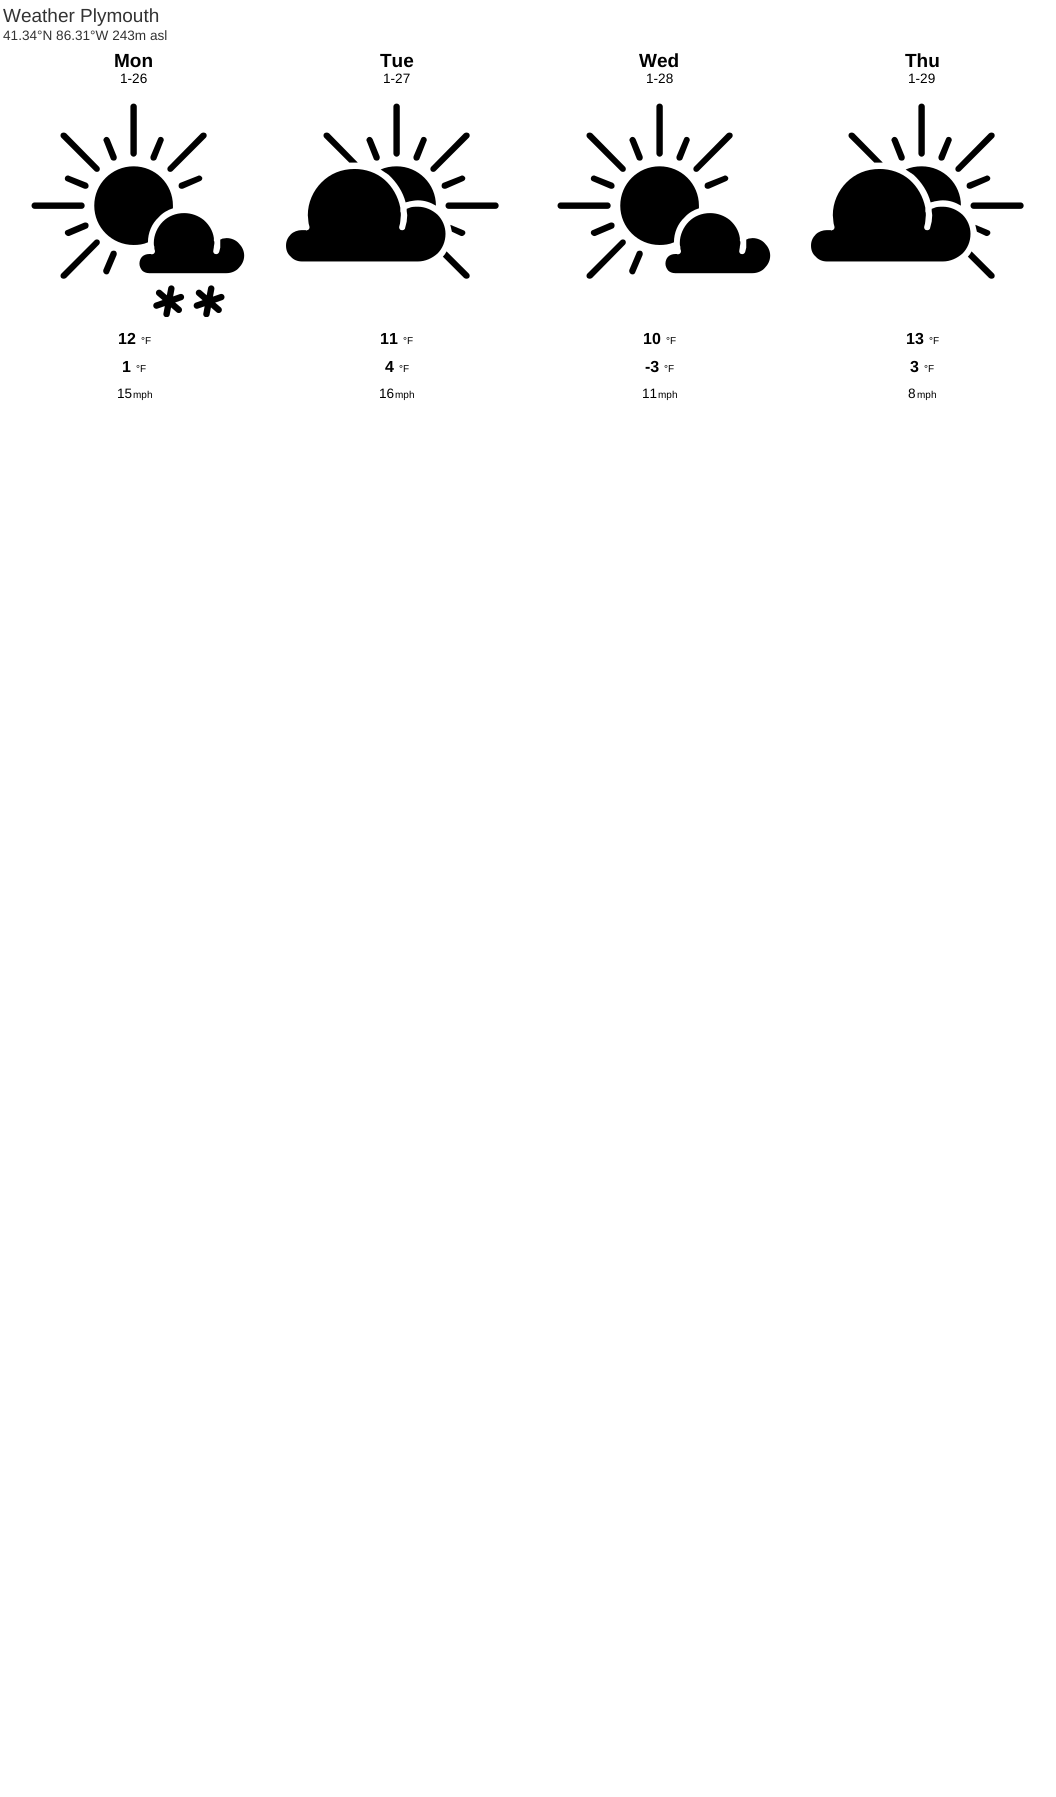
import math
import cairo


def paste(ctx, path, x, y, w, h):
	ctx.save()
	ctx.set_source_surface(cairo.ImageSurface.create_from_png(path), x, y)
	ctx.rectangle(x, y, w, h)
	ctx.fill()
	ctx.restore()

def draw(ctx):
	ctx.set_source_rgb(1, 1, 1)
	ctx.paint()
	ctx.select_font_face('Liberation Sans')
	ctx.set_font_size(19)
	ctx.set_source_rgb(0.2, 0.2, 0.2)
	ctx.move_to(3, 22)
	ctx.show_text('Weather Plymouth')
	ctx.set_font_size(13.6)
	ctx.move_to(3, 40)
	ctx.show_text('41.34°N 86.31°W 243m asl')
	ctx.select_font_face('Liberation Sans', cairo.FONT_SLANT_NORMAL, cairo.FONT_WEIGHT_BOLD)
	ctx.set_font_size(19)
	ctx.set_source_rgb(0, 0, 0)
	ctx.move_to(114, 67)
	ctx.show_text('Mon')
	ctx.select_font_face('Liberation Sans')
	ctx.set_font_size(13.6)
	ctx.move_to(120, 83)
	ctx.show_text('1-26')
	paste(ctx, 'media/1.png', 31, 103, 214, 214)
	ctx.select_font_face('Liberation Sans', cairo.FONT_SLANT_NORMAL, cairo.FONT_WEIGHT_BOLD)
	ctx.set_font_size(16)
	ctx.move_to(118, 344)
	ctx.show_text('12')
	ctx.select_font_face('Liberation Sans')
	ctx.set_font_size(10)
	ctx.move_to(141, 344)
	ctx.show_text('°F')
	ctx.select_font_face('Liberation Sans', cairo.FONT_SLANT_NORMAL, cairo.FONT_WEIGHT_BOLD)
	ctx.set_font_size(16)
	ctx.move_to(122, 372)
	ctx.show_text('1')
	ctx.select_font_face('Liberation Sans')
	ctx.set_font_size(10)
	ctx.move_to(136, 372)
	ctx.show_text('°F')
	ctx.set_font_size(13.6)
	ctx.move_to(117, 398)
	ctx.show_text('15')
	ctx.set_font_size(10)
	ctx.move_to(133, 398)
	ctx.show_text('mph')
	ctx.select_font_face('Liberation Sans', cairo.FONT_SLANT_NORMAL, cairo.FONT_WEIGHT_BOLD)
	ctx.set_font_size(19)
	ctx.move_to(380, 67)
	ctx.show_text('Tue')
	ctx.select_font_face('Liberation Sans')
	ctx.set_font_size(13.6)
	ctx.move_to(383, 83)
	ctx.show_text('1-27')
	paste(ctx, 'media/2.png', 286, 103, 213, 176)
	ctx.select_font_face('Liberation Sans', cairo.FONT_SLANT_NORMAL, cairo.FONT_WEIGHT_BOLD)
	ctx.set_font_size(16)
	ctx.move_to(380, 344)
	ctx.show_text('11')
	ctx.select_font_face('Liberation Sans')
	ctx.set_font_size(10)
	ctx.move_to(403, 344)
	ctx.show_text('°F')
	ctx.select_font_face('Liberation Sans', cairo.FONT_SLANT_NORMAL, cairo.FONT_WEIGHT_BOLD)
	ctx.set_font_size(16)
	ctx.move_to(385, 372)
	ctx.show_text('4')
	ctx.select_font_face('Liberation Sans')
	ctx.set_font_size(10)
	ctx.move_to(399, 372)
	ctx.show_text('°F')
	ctx.set_font_size(13.6)
	ctx.move_to(379, 398)
	ctx.show_text('16')
	ctx.set_font_size(10)
	ctx.move_to(395, 398)
	ctx.show_text('mph')
	ctx.select_font_face('Liberation Sans', cairo.FONT_SLANT_NORMAL, cairo.FONT_WEIGHT_BOLD)
	ctx.set_font_size(19)
	ctx.move_to(639, 67)
	ctx.show_text('Wed')
	ctx.select_font_face('Liberation Sans')
	ctx.set_font_size(13.6)
	ctx.move_to(646, 83)
	ctx.show_text('1-28')
	paste(ctx, 'media/3.png', 557, 103, 214, 176)
	ctx.select_font_face('Liberation Sans', cairo.FONT_SLANT_NORMAL, cairo.FONT_WEIGHT_BOLD)
	ctx.set_font_size(16)
	ctx.move_to(643, 344)
	ctx.show_text('10')
	ctx.select_font_face('Liberation Sans')
	ctx.set_font_size(10)
	ctx.move_to(666, 344)
	ctx.show_text('°F')
	ctx.select_font_face('Liberation Sans', cairo.FONT_SLANT_NORMAL, cairo.FONT_WEIGHT_BOLD)
	ctx.set_font_size(16)
	ctx.move_to(645, 372)
	ctx.show_text('-3')
	ctx.select_font_face('Liberation Sans')
	ctx.set_font_size(10)
	ctx.move_to(664, 372)
	ctx.show_text('°F')
	ctx.set_font_size(13.6)
	ctx.move_to(642, 398)
	ctx.show_text('11')
	ctx.set_font_size(10)
	ctx.move_to(658, 398)
	ctx.show_text('mph')
	ctx.select_font_face('Liberation Sans', cairo.FONT_SLANT_NORMAL, cairo.FONT_WEIGHT_BOLD)
	ctx.set_font_size(19)
	ctx.move_to(905, 67)
	ctx.show_text('Thu')
	ctx.select_font_face('Liberation Sans')
	ctx.set_font_size(13.6)
	ctx.move_to(908, 83)
	ctx.show_text('1-29')
	paste(ctx, 'media/2.png', 811, 103, 213, 176)
	ctx.select_font_face('Liberation Sans', cairo.FONT_SLANT_NORMAL, cairo.FONT_WEIGHT_BOLD)
	ctx.set_font_size(16)
	ctx.move_to(906, 344)
	ctx.show_text('13')
	ctx.select_font_face('Liberation Sans')
	ctx.set_font_size(10)
	ctx.move_to(929, 344)
	ctx.show_text('°F')
	ctx.select_font_face('Liberation Sans', cairo.FONT_SLANT_NORMAL, cairo.FONT_WEIGHT_BOLD)
	ctx.set_font_size(16)
	ctx.move_to(910, 372)
	ctx.show_text('3')
	ctx.select_font_face('Liberation Sans')
	ctx.set_font_size(10)
	ctx.move_to(924, 372)
	ctx.show_text('°F')
	ctx.set_font_size(13.6)
	ctx.move_to(908, 398)
	ctx.show_text('8')
	ctx.set_font_size(10)
	ctx.move_to(917, 398)
	ctx.show_text('mph')


surface = cairo.ImageSurface(cairo.FORMAT_RGB24, 1056, 1797)
ctx = cairo.Context(surface)
options = cairo.FontOptions()
options.set_hint_metrics(cairo.HINT_METRICS_OFF)
options.set_hint_style(cairo.HINT_STYLE_NONE)
ctx.set_font_options(options)
ctx.set_miter_limit(4)
draw(ctx)
surface.write_to_png('image.png')
